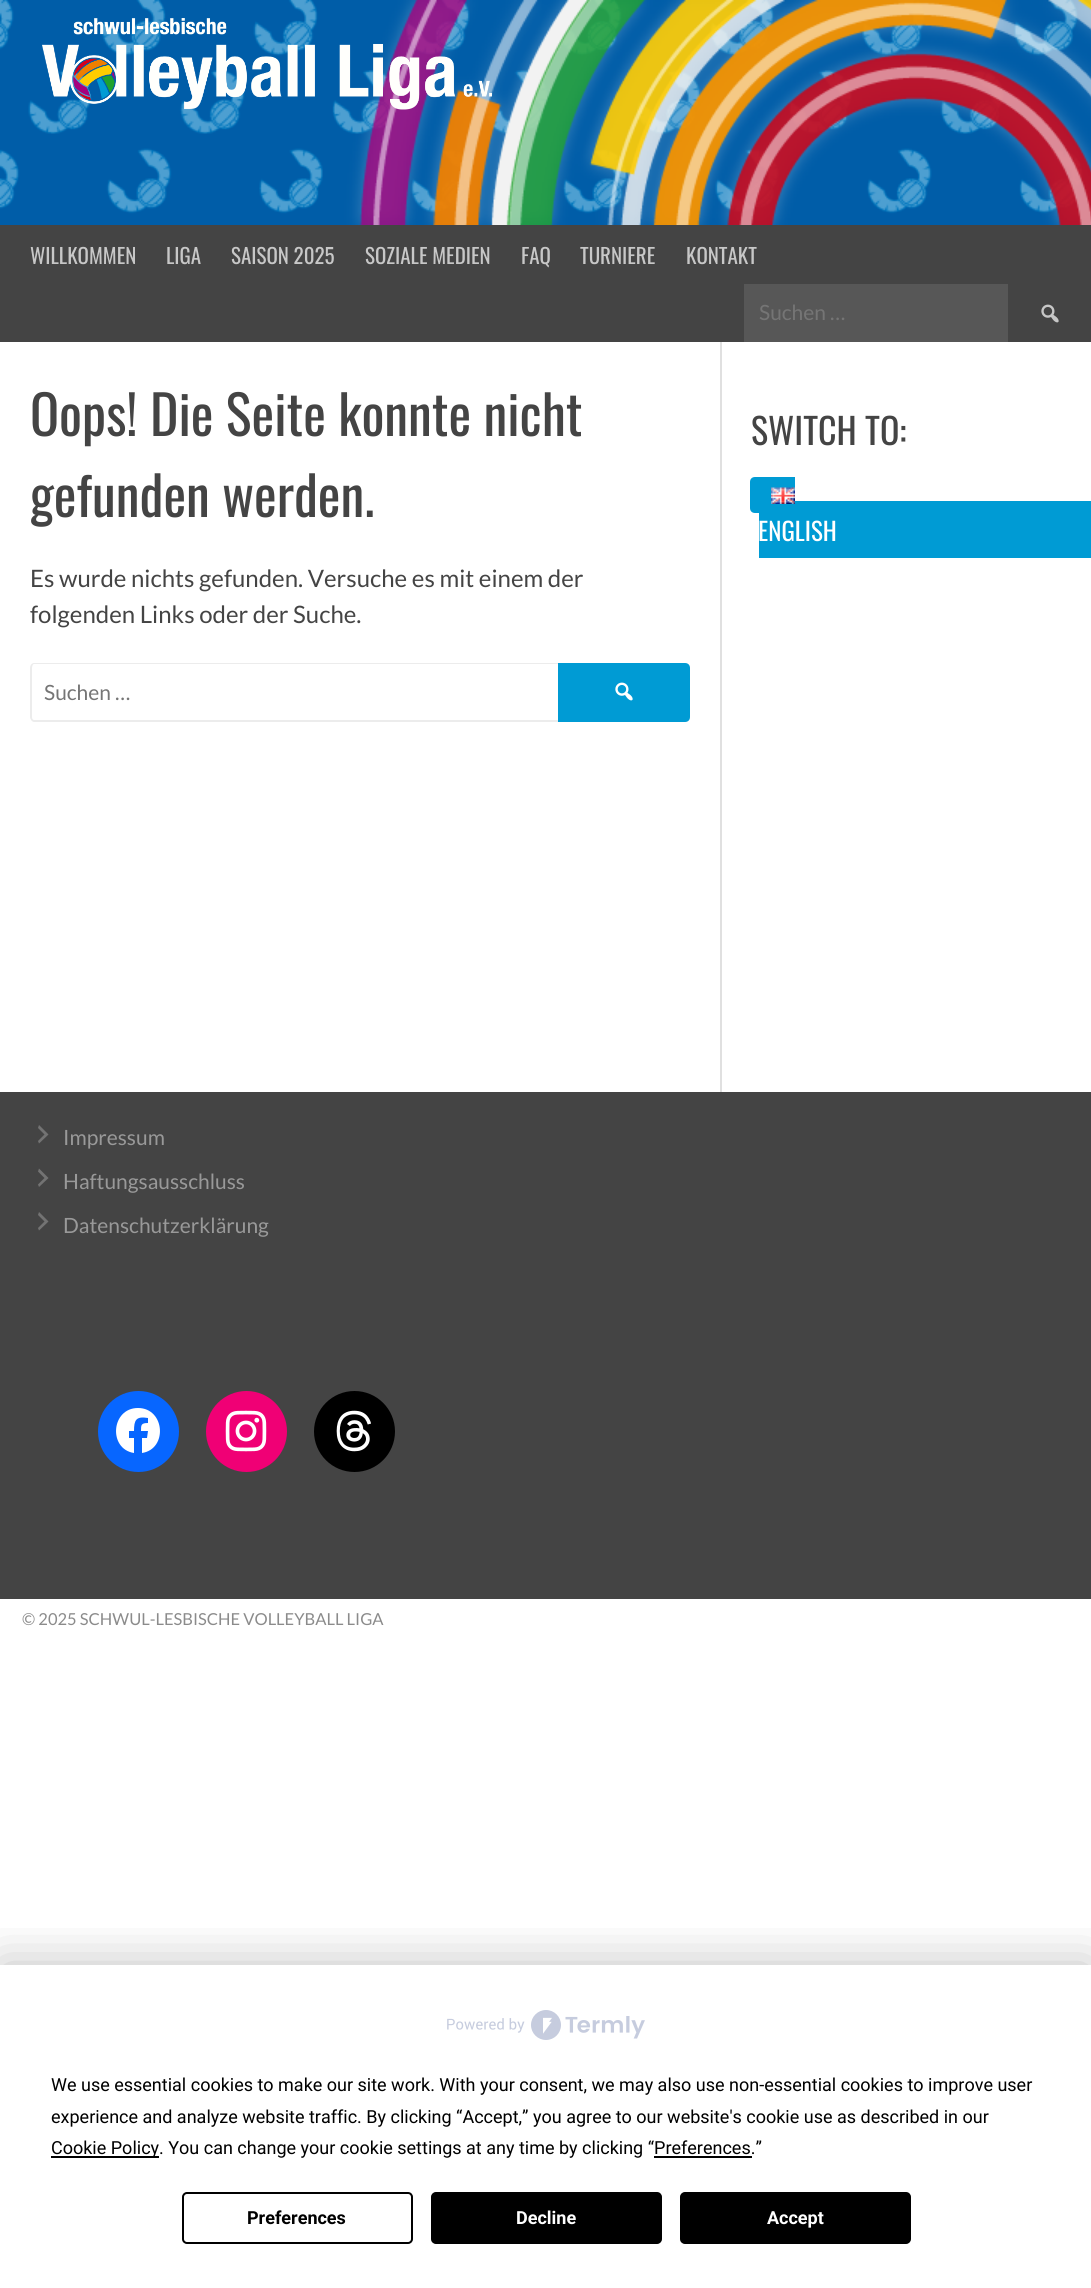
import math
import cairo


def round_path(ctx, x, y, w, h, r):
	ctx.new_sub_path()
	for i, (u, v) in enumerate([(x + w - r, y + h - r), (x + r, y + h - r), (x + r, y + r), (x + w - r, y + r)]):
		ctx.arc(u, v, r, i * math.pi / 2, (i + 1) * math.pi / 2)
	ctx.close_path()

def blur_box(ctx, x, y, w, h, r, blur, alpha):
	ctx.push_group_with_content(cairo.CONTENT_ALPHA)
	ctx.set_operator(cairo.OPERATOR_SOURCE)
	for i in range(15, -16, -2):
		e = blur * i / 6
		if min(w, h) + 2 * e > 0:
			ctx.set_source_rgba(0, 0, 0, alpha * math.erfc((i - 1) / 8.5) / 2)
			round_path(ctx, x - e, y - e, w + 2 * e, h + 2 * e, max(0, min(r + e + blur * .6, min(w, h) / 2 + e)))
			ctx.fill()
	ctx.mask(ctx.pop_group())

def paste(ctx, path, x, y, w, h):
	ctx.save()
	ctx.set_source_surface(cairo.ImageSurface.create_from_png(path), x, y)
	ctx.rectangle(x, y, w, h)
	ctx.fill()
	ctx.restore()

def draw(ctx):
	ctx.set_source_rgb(1, 1, 1)
	ctx.paint()
	paste(ctx, 'media/1.png', 0, 0, 1091, 225)
	paste(ctx, 'media/2.png', 42, 18, 450, 92)
	ctx.set_source_rgb(0.267, 0.267, 0.267)
	ctx.rectangle(0, 225, 1091, 117)
	ctx.fill()
	ctx.select_font_face('Oswald')
	ctx.set_font_size(21)
	ctx.set_source_rgb(0.78, 0.78, 0.78)
	for x, y, s in [
		(30, 264, 'WILLKOMMEN'),
		(166, 264, 'LIGA'),
		(231, 264, 'SAISON 2025'),
		(365, 264, 'SOZIALE MEDIEN'),
		(521, 264, 'FAQ'),
		(580, 264, 'TURNIERE'),
		(686, 264, 'KONTAKT'),
	]:
		ctx.move_to(x, y)
		ctx.show_text(s)
	ctx.set_source_rgb(0.341, 0.341, 0.341)
	ctx.rectangle(744, 284, 264, 58)
	ctx.fill()
	ctx.select_font_face('Lato')
	ctx.set_source_rgb(0.459, 0.459, 0.459)
	ctx.move_to(759, 320)
	ctx.show_text('Suchen …')
	paste(ctx, 'media/3.png', 1041, 304, 18, 19)
	ctx.set_source_rgb(0.878, 0.878, 0.878)
	ctx.rectangle(720, 342, 2, 750)
	ctx.fill()
	ctx.select_font_face('Oswald')
	ctx.set_font_size(54)
	ctx.set_source_rgb(0.267, 0.267, 0.267)
	ctx.move_to(30, 436)
	ctx.show_text('Oops! Die Seite konnte nicht')
	ctx.move_to(30, 517)
	ctx.show_text('gefunden werden.')
	ctx.select_font_face('Lato')
	ctx.set_font_size(24)
	ctx.move_to(30, 587)
	ctx.show_text('Es wurde nichts gefunden. Versuche es mit einem der')
	ctx.move_to(30, 623)
	ctx.show_text('folgenden Links oder der Suche.')
	ctx.set_source_rgb(0.922, 0.922, 0.922)
	ctx.set_fill_rule(cairo.FILL_RULE_EVEN_ODD)
	ctx.new_path()
	ctx.move_to(34, 663)
	ctx.line_to(558, 663)
	ctx.line_to(558, 722)
	ctx.line_to(34, 722)
	ctx.curve_to(32, 722, 30, 719, 30, 717)
	ctx.line_to(30, 668)
	ctx.curve_to(30, 665, 32, 663, 34, 663)
	ctx.close_path()
	ctx.move_to(34, 664)
	ctx.line_to(558, 664)
	ctx.line_to(558, 720)
	ctx.line_to(34, 720)
	ctx.curve_to(33, 720, 32, 719, 32, 717)
	ctx.line_to(32, 668)
	ctx.curve_to(32, 666, 33, 664, 34, 664)
	ctx.close_path()
	ctx.fill()
	ctx.set_font_size(21)
	ctx.set_source_rgb(0.459, 0.459, 0.459)
	ctx.move_to(44, 700)
	ctx.show_text('Suchen …')
	ctx.set_source_rgb(0, 0.608, 0.831)
	ctx.new_path()
	ctx.move_to(558, 663)
	ctx.line_to(685, 663)
	ctx.curve_to(688, 663, 690, 665, 690, 668)
	ctx.line_to(690, 717)
	ctx.curve_to(690, 720, 688, 722, 685, 722)
	ctx.line_to(558, 722)
	ctx.close_path()
	ctx.fill()
	paste(ctx, 'media/4.png', 615, 682, 18, 19)
	ctx.select_font_face('Oswald')
	ctx.set_font_size(36)
	ctx.set_source_rgb(0.267, 0.267, 0.267)
	ctx.move_to(751, 445)
	ctx.show_text('SWITCH TO:')
	ctx.set_source_rgb(0, 0.608, 0.831)
	ctx.new_path()
	ctx.move_to(755, 477)
	ctx.line_to(795, 477)
	ctx.line_to(795, 513)
	ctx.line_to(755, 513)
	ctx.curve_to(752, 513, 750, 511, 750, 508)
	ctx.line_to(750, 482)
	ctx.curve_to(750, 479, 752, 477, 755, 477)
	ctx.close_path()
	ctx.fill()
	ctx.rectangle(759, 501, 332, 57)
	ctx.fill()
	paste(ctx, 'media/5.png', 771, 487, 24, 17)
	ctx.set_font_size(25)
	ctx.set_source_rgb(1, 1, 1)
	ctx.move_to(758, 541)
	ctx.show_text('ENGLISH')
	ctx.set_source_rgb(0.267, 0.267, 0.267)
	ctx.rectangle(0, 1092, 1091, 507)
	ctx.fill()
	ctx.set_source_rgb(0.451, 0.451, 0.451)
	ctx.set_fill_rule(cairo.FILL_RULE_WINDING)
	ctx.new_path()
	ctx.move_to(38, 1141)
	ctx.line_to(44.5, 1134.5)
	ctx.line_to(38, 1128)
	ctx.line_to(39, 1125)
	ctx.line_to(48.5, 1134.5)
	ctx.line_to(39, 1143.5)
	ctx.close_path()
	ctx.move_to(38, 1184.5)
	ctx.line_to(44.5, 1178)
	ctx.line_to(38, 1171.5)
	ctx.line_to(39, 1168.5)
	ctx.line_to(48.5, 1178)
	ctx.line_to(39, 1187)
	ctx.close_path()
	ctx.fill()
	ctx.select_font_face('Lato')
	ctx.set_font_size(21)
	ctx.set_source_rgb(0.6, 0.6, 0.6)
	ctx.move_to(63, 1145)
	ctx.show_text('Impressum')
	ctx.move_to(63, 1189)
	ctx.show_text('Haftungsausschluss')
	ctx.set_source_rgb(0.451, 0.451, 0.451)
	ctx.new_path()
	ctx.move_to(38, 1228)
	ctx.line_to(44.5, 1221.5)
	ctx.line_to(38, 1215)
	ctx.line_to(39, 1212)
	ctx.line_to(48.5, 1221.5)
	ctx.line_to(39, 1230.5)
	ctx.close_path()
	ctx.fill()
	ctx.set_source_rgb(0.6, 0.6, 0.6)
	ctx.move_to(63, 1233)
	ctx.show_text('Datenschutzerklärung')
	ctx.set_source_rgb(0.031, 0.4, 1)
	ctx.new_path()
	ctx.arc(138.5, 1431.5, 40.5, 0, 2 * math.pi)
	ctx.fill()
	ctx.set_source_rgb(1, 1, 1)
	ctx.new_path()
	ctx.move_to(138, 1408)
	ctx.curve_to(111, 1408, 108, 1449, 134, 1453)
	ctx.line_to(134, 1438)
	ctx.line_to(129, 1438)
	ctx.line_to(129, 1431)
	ctx.line_to(134, 1431)
	ctx.curve_to(134, 1420, 136, 1416, 148, 1418)
	ctx.line_to(148, 1423)
	ctx.curve_to(141, 1423, 141, 1425, 141, 1431)
	ctx.line_to(148, 1431)
	ctx.line_to(147, 1438)
	ctx.line_to(142, 1438)
	ctx.line_to(142, 1453)
	ctx.curve_to(168, 1449, 165, 1408, 138, 1408)
	ctx.close_path()
	ctx.fill()
	ctx.set_source_rgb(0.941, 0, 0.459)
	ctx.arc(246.5, 1431.5, 40.5, 0, 2 * math.pi)
	ctx.fill()
	paste(ctx, 'media/6.png', 225, 1410, 42, 42)
	ctx.set_source_rgb(0, 0, 0)
	ctx.arc(354.5, 1431.5, 40.5, 0, 2 * math.pi)
	ctx.fill()
	paste(ctx, 'media/7.png', 336, 1410, 35, 42)
	ctx.set_font_size(16.5)
	ctx.set_source_rgb(0.545, 0.545, 0.545)
	ctx.move_to(22, 1625)
	ctx.show_text('© 2025 SCHWUL-LESBISCHE VOLLEYBALL LIGA')
	ctx.save()
	ctx.rectangle(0, 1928, 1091, 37)
	ctx.clip()
	ctx.set_source_rgb(0, 0, 0)
	blur_box(ctx, 0, 1965, 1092, 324, 0, 26, 0.25)
	ctx.restore()
	paste(ctx, 'media/8.png', 447, 2010, 198, 30)
	ctx.select_font_face('Roboto')
	ctx.set_font_size(18)
	ctx.set_source_rgb(0, 0, 0)
	ctx.move_to(51, 2091)
	ctx.show_text('We use essential cookies to make our site work. With your consent, we may also use non-essential cookies to improve user')
	ctx.move_to(51, 2123)
	ctx.show_text('experience and analyze website traffic. By clicking “Accept,” you agree to our website\'s cookie use as described in our')
	ctx.rectangle(51, 2156, 108, 2)
	ctx.fill()
	ctx.move_to(51, 2154)
	ctx.show_text('Cookie Policy. You can change your cookie settings at any time by clicking “Preferences.”')
	ctx.rectangle(654, 2156, 98, 2)
	ctx.fill()
	round_path(ctx, 183, 2193, 229, 50, 4)
	ctx.stroke()
	ctx.select_font_face('Roboto', cairo.FONT_SLANT_NORMAL, cairo.FONT_WEIGHT_BOLD)
	ctx.move_to(247, 2224)
	ctx.show_text('Preferences')
	round_path(ctx, 432, 2193, 229, 50, 4)
	ctx.fill_preserve()
	ctx.stroke()
	ctx.set_source_rgb(1, 1, 1)
	ctx.move_to(516, 2224)
	ctx.show_text('Decline')
	ctx.set_source_rgb(0, 0, 0)
	round_path(ctx, 681, 2193, 229, 50, 4)
	ctx.fill_preserve()
	ctx.stroke()
	ctx.set_source_rgb(1, 1, 1)
	ctx.move_to(767, 2224)
	ctx.show_text('Accept')


surface = cairo.ImageSurface(cairo.FORMAT_RGB24, 1091, 2288)
ctx = cairo.Context(surface)
options = cairo.FontOptions()
options.set_hint_metrics(cairo.HINT_METRICS_OFF)
options.set_hint_style(cairo.HINT_STYLE_NONE)
ctx.set_font_options(options)
ctx.set_miter_limit(4)
draw(ctx)
surface.write_to_png('image.png')
